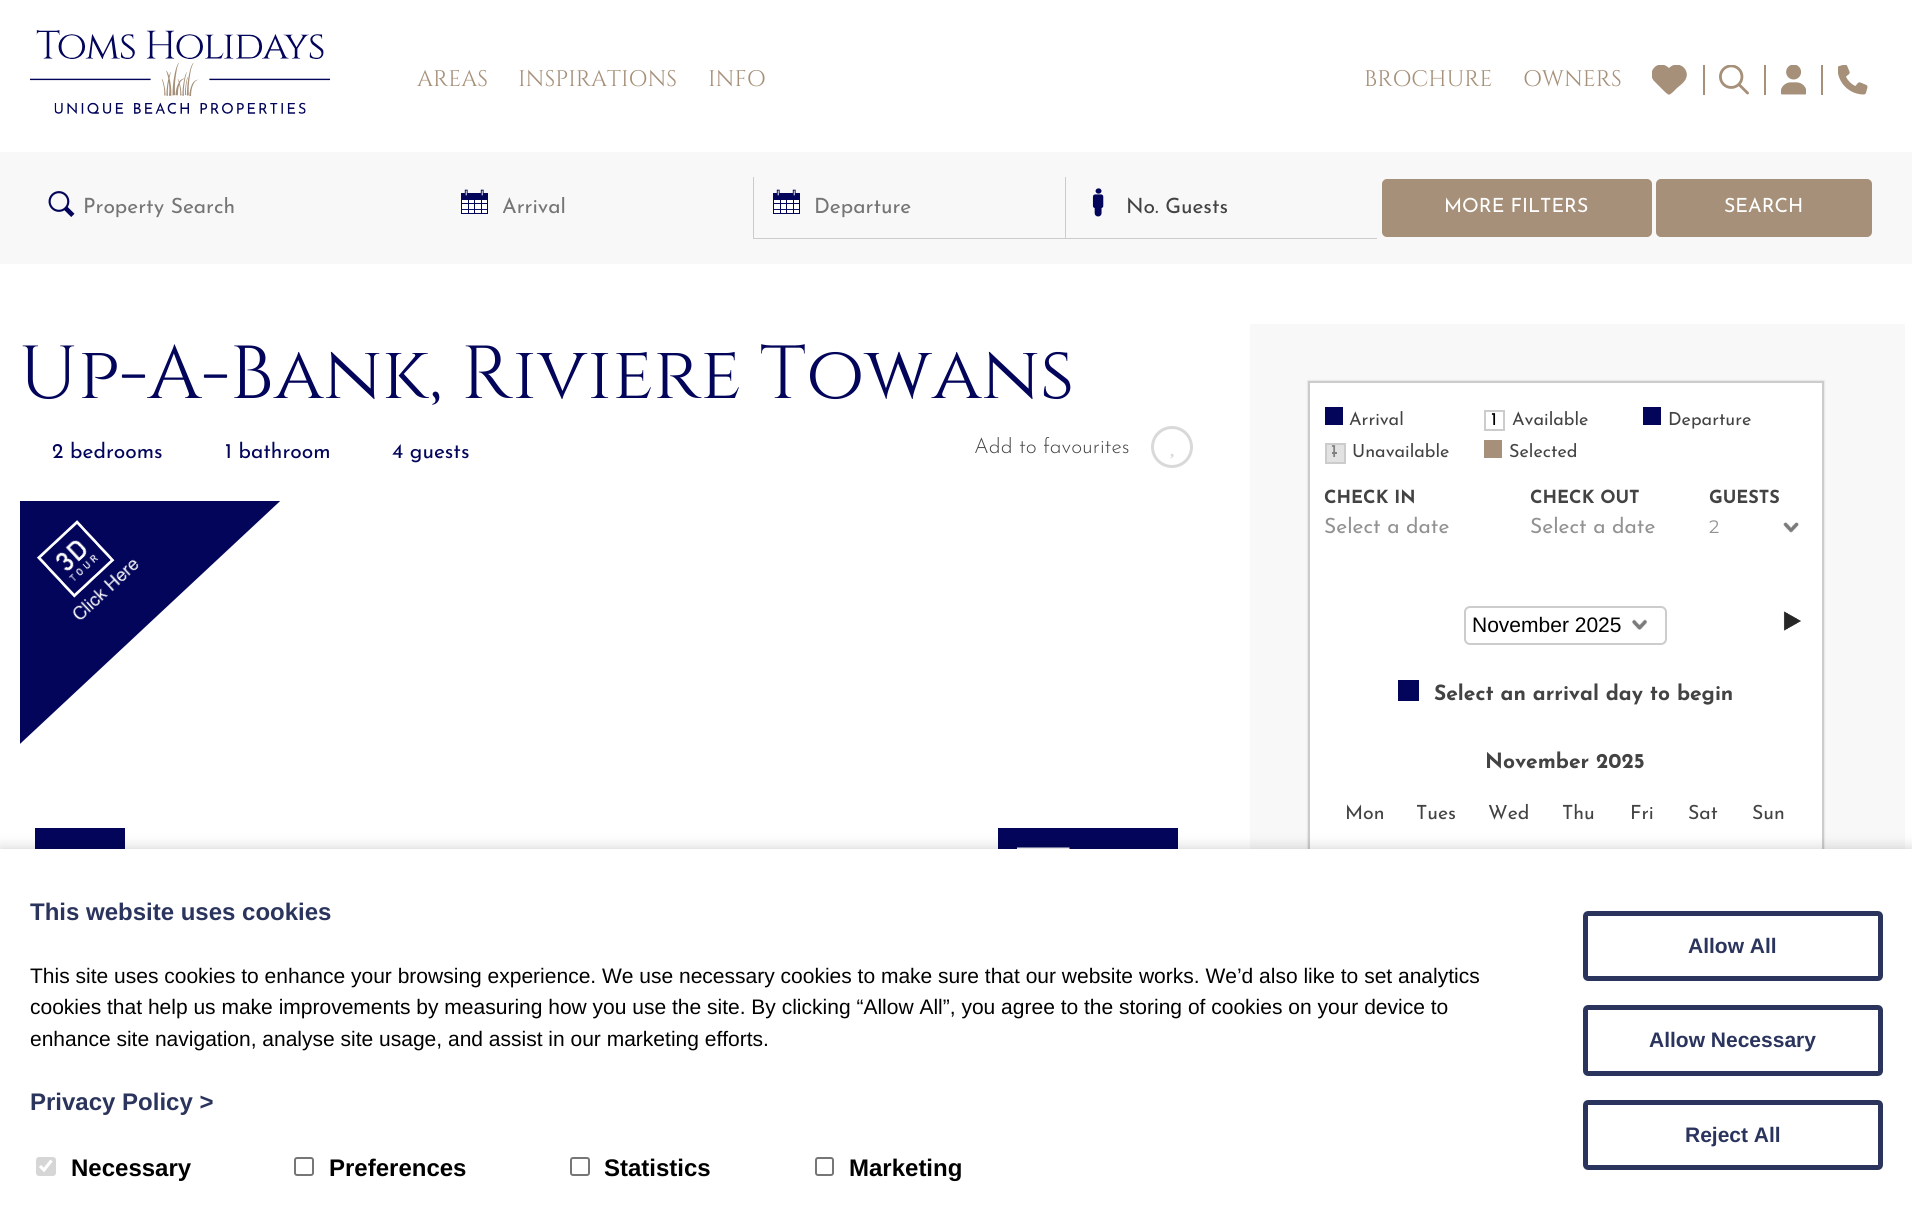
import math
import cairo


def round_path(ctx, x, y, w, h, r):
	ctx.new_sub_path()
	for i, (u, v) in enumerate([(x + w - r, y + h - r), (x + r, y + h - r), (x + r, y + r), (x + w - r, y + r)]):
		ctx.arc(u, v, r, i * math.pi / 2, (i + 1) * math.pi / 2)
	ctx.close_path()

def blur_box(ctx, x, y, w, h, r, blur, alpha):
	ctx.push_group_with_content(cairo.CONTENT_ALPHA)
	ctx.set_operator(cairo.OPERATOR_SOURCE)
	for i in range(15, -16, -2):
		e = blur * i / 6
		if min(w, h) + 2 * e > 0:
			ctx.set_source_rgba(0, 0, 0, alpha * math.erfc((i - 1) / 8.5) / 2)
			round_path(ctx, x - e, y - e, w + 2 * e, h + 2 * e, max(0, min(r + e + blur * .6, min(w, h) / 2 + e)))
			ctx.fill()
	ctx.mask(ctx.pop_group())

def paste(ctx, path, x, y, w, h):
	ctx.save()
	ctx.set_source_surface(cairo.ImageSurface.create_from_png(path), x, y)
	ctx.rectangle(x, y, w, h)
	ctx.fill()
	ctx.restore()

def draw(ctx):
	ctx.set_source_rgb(1, 1, 1)
	ctx.paint()
	paste(ctx, 'media/1.png', 30, 30, 300, 84)
	ctx.select_font_face('Cinzel')
	ctx.set_font_size(22.5)
	ctx.set_source_rgb(0.651, 0.565, 0.475)
	for x, y, s in [
		(417, 86, 'AREAS'),
		(518, 86, 'INSPIRATIONS'),
		(708, 86, 'INFO'),
		(1364, 86, 'BROCHURE'),
		(1523, 86, 'OWNERS'),
	]:
		ctx.move_to(x, y)
		ctx.show_text(s)
	ctx.rectangle(1703, 65, 2, 30)
	ctx.fill()
	ctx.save()
	ctx.rectangle(1652, 65, 36, 30)
	ctx.clip()
	ctx.new_path()
	ctx.move_to(1655, 82)
	ctx.line_to(1665, 92)
	ctx.curve_to(1669, 95.5, 1669, 95.5, 1673, 92)
	ctx.line_to(1677, 88)
	ctx.curve_to(1680, 85.5, 1683.5, 83, 1685.5, 79.5)
	ctx.curve_to(1691, 69.5, 1678, 59, 1669, 68)
	ctx.curve_to(1658, 57.5, 1645, 73, 1655, 82)
	ctx.close_path()
	ctx.fill()
	ctx.restore()
	ctx.rectangle(1764, 65, 2, 30)
	ctx.fill()
	paste(ctx, 'media/2.png', 1719, 65, 30, 30)
	ctx.rectangle(1821, 65, 2, 30)
	ctx.fill()
	paste(ctx, 'media/3.png', 1781, 65, 25, 30)
	paste(ctx, 'media/4.png', 1838, 65, 30, 30)
	ctx.set_source_rgb(0.976, 0.969, 0.969)
	ctx.rectangle(0, 152, 1912, 112)
	ctx.fill()
	paste(ctx, 'media/5.png', 48, 191, 27, 26)
	ctx.save()
	ctx.rectangle(84, 197, 359, 22)
	ctx.clip()
	ctx.select_font_face('Josefin Sans')
	ctx.set_font_size(21)
	ctx.set_source_rgb(0.459, 0.459, 0.459)
	ctx.move_to(83, 213)
	ctx.show_text('Property Search')
	ctx.restore()
	paste(ctx, 'media/6.png', 461, 189, 27, 25)
	ctx.save()
	ctx.rectangle(503, 197, 252, 22)
	ctx.clip()
	ctx.select_font_face('Josefin Sans')
	ctx.set_font_size(21)
	ctx.set_source_rgb(0.459, 0.459, 0.459)
	ctx.move_to(502, 213)
	ctx.show_text('Arrival')
	ctx.restore()
	ctx.set_source_rgb(0.8, 0.8, 0.8)
	ctx.new_path()
	ctx.move_to(753, 177)
	ctx.line_to(753, 239)
	ctx.line_to(1065, 239)
	ctx.line_to(1065, 238)
	ctx.line_to(754, 238)
	ctx.line_to(754, 177)
	ctx.close_path()
	ctx.fill()
	paste(ctx, 'media/6.png', 773, 189, 27, 25)
	ctx.select_font_face('Josefin Sans')
	ctx.set_font_size(21)
	ctx.set_source_rgb(0.459, 0.459, 0.459)
	ctx.move_to(814, 213)
	ctx.show_text('Departure')
	ctx.set_source_rgb(0.8, 0.8, 0.8)
	ctx.new_path()
	ctx.move_to(1065, 177)
	ctx.line_to(1065, 239)
	ctx.line_to(1377, 239)
	ctx.line_to(1377, 238)
	ctx.line_to(1066, 238)
	ctx.line_to(1066, 177)
	ctx.close_path()
	ctx.fill()
	paste(ctx, 'media/7.png', 1092, 188, 12, 29)
	ctx.set_source_rgb(0.263, 0.263, 0.263)
	ctx.move_to(1126, 213)
	ctx.show_text('No. Guests')
	ctx.set_source_rgb(0.651, 0.565, 0.475)
	round_path(ctx, 1382, 179, 270, 58, 5)
	ctx.fill()
	ctx.set_font_size(19.5)
	ctx.set_source_rgb(1, 1, 1)
	ctx.move_to(1444, 212)
	ctx.show_text('MORE FILTERS')
	ctx.set_source_rgb(0.651, 0.565, 0.475)
	round_path(ctx, 1656, 179, 216, 58, 5)
	ctx.fill()
	ctx.set_source_rgb(1, 1, 1)
	ctx.move_to(1724, 212)
	ctx.show_text('SEARCH')
	ctx.select_font_face('Cinzel')
	ctx.set_font_size(75)
	ctx.set_source_rgb(0.008, 0.02, 0.353)
	ctx.move_to(19, 398)
	ctx.show_text('Up-A-Bank, Riviere Towans')
	ctx.select_font_face('Josefin Sans')
	ctx.set_font_size(21)
	for x, y, s in [
		(52, 458, '2 bedrooms'),
		(225, 458, '1 bathroom'),
		(392, 458, '4 guests'),
	]:
		ctx.move_to(x, y)
		ctx.show_text(s)
	ctx.select_font_face('Josefin Sans Light')
	ctx.set_source_rgb(0.263, 0.263, 0.263)
	ctx.move_to(974, 453)
	ctx.show_text('Add to favourites')
	ctx.new_path()
	ctx.arc(1172, 447, 19.5, 0, 2 * math.pi)
	ctx.set_source_rgb(0.851, 0.851, 0.851)
	ctx.set_line_width(3)
	ctx.stroke()
	paste(ctx, 'media/8.png', 1170, 453, 4, 6)
	ctx.save()
	ctx.rectangle(20, 501, 1173, 660)
	ctx.clip()
	ctx.set_source_rgb(0.008, 0.02, 0.353)
	ctx.new_path()
	ctx.move_to(-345, 592)
	ctx.line_to(138, 142)
	ctx.line_to(383, 405)
	ctx.line_to(-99, 855)
	ctx.close_path()
	ctx.fill()
	ctx.restore()
	paste(ctx, 'media/9.png', 36, 520, 103, 100)
	ctx.set_source_rgb(0.008, 0.02, 0.353)
	ctx.rectangle(35, 828, 90, 21)
	ctx.fill()
	ctx.rectangle(998, 828, 180, 21)
	ctx.fill()
	paste(ctx, 'media/10.png', 1017, 847, 53, 2)
	ctx.set_source_rgb(0.976, 0.969, 0.969)
	ctx.rectangle(1250, 324, 655, 525)
	ctx.fill()
	ctx.set_source_rgb(0.8, 0.8, 0.8)
	blur_box(ctx, 1308, 381, 516, 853, 0, 1, 1)
	ctx.set_source_rgb(1, 1, 1)
	ctx.rectangle(1310, 383, 512, 466)
	ctx.fill()
	ctx.rectangle(1309, 382, 514, 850)
	ctx.set_source_rgb(0.8, 0.8, 0.8)
	ctx.set_line_width(2)
	ctx.stroke()
	ctx.set_source_rgb(0.008, 0.02, 0.353)
	ctx.rectangle(1325, 407, 18, 18)
	ctx.fill()
	ctx.select_font_face('Josefin Sans')
	ctx.set_font_size(18)
	ctx.set_source_rgb(0.263, 0.263, 0.263)
	ctx.move_to(1349, 425)
	ctx.show_text('Arrival')
	ctx.rectangle(1485, 411, 19, 19)
	ctx.set_source_rgb(0.8, 0.8, 0.8)
	ctx.stroke()
	ctx.set_source_rgb(0, 0, 0)
	ctx.move_to(1491, 425)
	ctx.show_text('1')
	ctx.set_source_rgb(0.263, 0.263, 0.263)
	ctx.move_to(1512, 425)
	ctx.show_text('Available')
	ctx.set_source_rgb(0.008, 0.02, 0.353)
	ctx.rectangle(1643, 407, 18, 18)
	ctx.fill()
	ctx.set_source_rgb(0.263, 0.263, 0.263)
	ctx.move_to(1668, 425)
	ctx.show_text('Departure')
	ctx.set_source_rgb(0.886, 0.886, 0.886)
	ctx.rectangle(1326, 444, 19, 19)
	ctx.fill_preserve()
	ctx.set_source_rgb(0.8, 0.8, 0.8)
	ctx.stroke()
	ctx.set_source_rgb(0.502, 0.502, 0.502)
	ctx.rectangle(1332, 452, 5, 2)
	ctx.fill()
	ctx.move_to(1331, 457)
	ctx.show_text('1')
	ctx.set_source_rgb(0.263, 0.263, 0.263)
	ctx.move_to(1352, 457)
	ctx.show_text('Unavailable')
	ctx.set_source_rgb(0.651, 0.565, 0.475)
	ctx.rectangle(1484, 440, 18, 18)
	ctx.fill()
	ctx.set_source_rgb(0.263, 0.263, 0.263)
	ctx.move_to(1509, 457)
	ctx.show_text('Selected')
	ctx.select_font_face('Josefin Sans', cairo.FONT_SLANT_NORMAL, cairo.FONT_WEIGHT_BOLD)
	ctx.move_to(1324, 503)
	ctx.show_text('CHECK IN')
	ctx.select_font_face('Josefin Sans')
	ctx.set_font_size(21)
	ctx.set_source_rgb(0.573, 0.573, 0.573)
	ctx.move_to(1324, 533)
	ctx.show_text('Select a date')
	ctx.select_font_face('Josefin Sans', cairo.FONT_SLANT_NORMAL, cairo.FONT_WEIGHT_BOLD)
	ctx.set_font_size(18)
	ctx.set_source_rgb(0.263, 0.263, 0.263)
	ctx.move_to(1530, 503)
	ctx.show_text('CHECK OUT')
	ctx.select_font_face('Josefin Sans')
	ctx.set_font_size(21)
	ctx.set_source_rgb(0.573, 0.573, 0.573)
	ctx.move_to(1530, 533)
	ctx.show_text('Select a date')
	ctx.select_font_face('Josefin Sans', cairo.FONT_SLANT_NORMAL, cairo.FONT_WEIGHT_BOLD)
	ctx.set_font_size(18)
	ctx.set_source_rgb(0.263, 0.263, 0.263)
	ctx.move_to(1709, 503)
	ctx.show_text('GUESTS')
	paste(ctx, 'media/11.png', 1783, 522, 16, 11)
	ctx.select_font_face('Montserrat')
	ctx.set_source_rgb(0.573, 0.573, 0.573)
	ctx.move_to(1709, 533)
	ctx.show_text('2')
	paste(ctx, 'media/12.png', 1632, 619, 15, 11)
	round_path(ctx, 1465, 607, 201, 37, 5)
	ctx.set_source_rgb(0.8, 0.8, 0.8)
	ctx.stroke()
	ctx.select_font_face('Liberation Sans')
	ctx.set_font_size(21)
	ctx.set_source_rgb(0, 0, 0)
	ctx.move_to(1472, 632)
	ctx.show_text('November 2025')
	paste(ctx, 'media/13.png', 1783, 611, 18, 20)
	ctx.set_source_rgb(0.008, 0.02, 0.353)
	ctx.rectangle(1398, 680, 21, 21)
	ctx.fill()
	ctx.select_font_face('Josefin Sans', cairo.FONT_SLANT_NORMAL, cairo.FONT_WEIGHT_BOLD)
	ctx.set_source_rgb(0.263, 0.263, 0.263)
	ctx.move_to(1434, 700)
	ctx.show_text('Select an arrival day to begin')
	ctx.move_to(1485, 768)
	ctx.show_text('November 2025')
	ctx.select_font_face('Josefin Sans')
	ctx.set_font_size(19.5)
	for x, y, s in [
		(1345, 819, 'Mon'),
		(1416, 819, 'Tues'),
		(1488, 819, 'Wed'),
		(1562, 819, 'Thu'),
		(1630, 819, 'Fri'),
		(1688, 819, 'Sat'),
		(1752, 819, 'Sun'),
	]:
		ctx.move_to(x, y)
		ctx.show_text(s)
	ctx.set_source_rgb(0, 0, 0)
	blur_box(ctx, 0, 849, 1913, 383, 0, 7.5, 0.2)
	ctx.set_source_rgb(1, 1, 1)
	ctx.rectangle(0, 849, 1912, 382)
	ctx.fill()
	ctx.select_font_face('Liberation Sans', cairo.FONT_SLANT_NORMAL, cairo.FONT_WEIGHT_BOLD)
	ctx.set_font_size(24)
	ctx.set_source_rgb(0.165, 0.204, 0.365)
	ctx.move_to(30, 920)
	ctx.show_text('This website uses cookies')
	ctx.select_font_face('Liberation Sans')
	ctx.set_font_size(21)
	ctx.set_source_rgb(0, 0, 0)
	for x, y, s in [
		(30, 983, 'This site uses cookies to enhance your browsing experience. We use necessary cookies to make sure that our website works. We’d also like to set analytics'),
		(30, 1014, 'cookies that help us make improvements by measuring how you use the site. By clicking “Allow All”, you agree to the storing of cookies on your device to'),
		(30, 1046, 'enhance site navigation, analyse site usage, and assist in our marketing efforts.'),
	]:
		ctx.move_to(x, y)
		ctx.show_text(s)
	ctx.select_font_face('Liberation Sans', cairo.FONT_SLANT_NORMAL, cairo.FONT_WEIGHT_BOLD)
	ctx.set_font_size(24)
	ctx.set_source_rgb(0.165, 0.204, 0.365)
	ctx.move_to(30, 1110)
	ctx.show_text('Privacy Policy >')
	ctx.set_source_rgb(0.839, 0.839, 0.839)
	round_path(ctx, 36, 1157, 20, 19, 3)
	ctx.fill()
	ctx.new_path()
	ctx.move_to(40, 1166)
	ctx.line_to(44, 1170)
	ctx.line_to(51.5, 1160.5)
	ctx.set_source_rgb(1, 1, 1)
	ctx.set_line_width(3.1)
	ctx.stroke()
	ctx.set_source_rgb(0, 0, 0)
	ctx.move_to(71, 1176)
	ctx.show_text('Necessary')
	round_path(ctx, 295, 1158, 18, 17, 2)
	ctx.set_source_rgb(0.463, 0.463, 0.463)
	ctx.set_line_width(2)
	ctx.stroke()
	ctx.set_source_rgb(0, 0, 0)
	ctx.move_to(329, 1176)
	ctx.show_text('Preferences')
	round_path(ctx, 571, 1158, 18, 17, 2)
	ctx.set_source_rgb(0.463, 0.463, 0.463)
	ctx.stroke()
	ctx.set_source_rgb(0, 0, 0)
	ctx.move_to(604, 1176)
	ctx.show_text('Statistics')
	round_path(ctx, 816, 1158, 17, 17, 2)
	ctx.set_source_rgb(0.463, 0.463, 0.463)
	ctx.stroke()
	ctx.set_source_rgb(0, 0, 0)
	ctx.move_to(849, 1176)
	ctx.show_text('Marketing')
	round_path(ctx, 1585.5, 913.5, 295, 65, 2.5)
	ctx.set_source_rgb(0.165, 0.204, 0.365)
	ctx.set_line_width(5)
	ctx.stroke()
	ctx.set_font_size(21)
	ctx.move_to(1688, 953)
	ctx.show_text('Allow All')
	round_path(ctx, 1585.5, 1007.5, 295, 66, 2.5)
	ctx.stroke()
	ctx.move_to(1649, 1047)
	ctx.show_text('Allow Necessary')
	round_path(ctx, 1585.5, 1102.5, 295, 65, 2.5)
	ctx.stroke()
	ctx.move_to(1685, 1142)
	ctx.show_text('Reject All')


surface = cairo.ImageSurface(cairo.FORMAT_RGB24, 1912, 1231)
ctx = cairo.Context(surface)
options = cairo.FontOptions()
options.set_hint_metrics(cairo.HINT_METRICS_OFF)
options.set_hint_style(cairo.HINT_STYLE_NONE)
ctx.set_font_options(options)
ctx.set_miter_limit(4)
draw(ctx)
surface.write_to_png('image.png')
